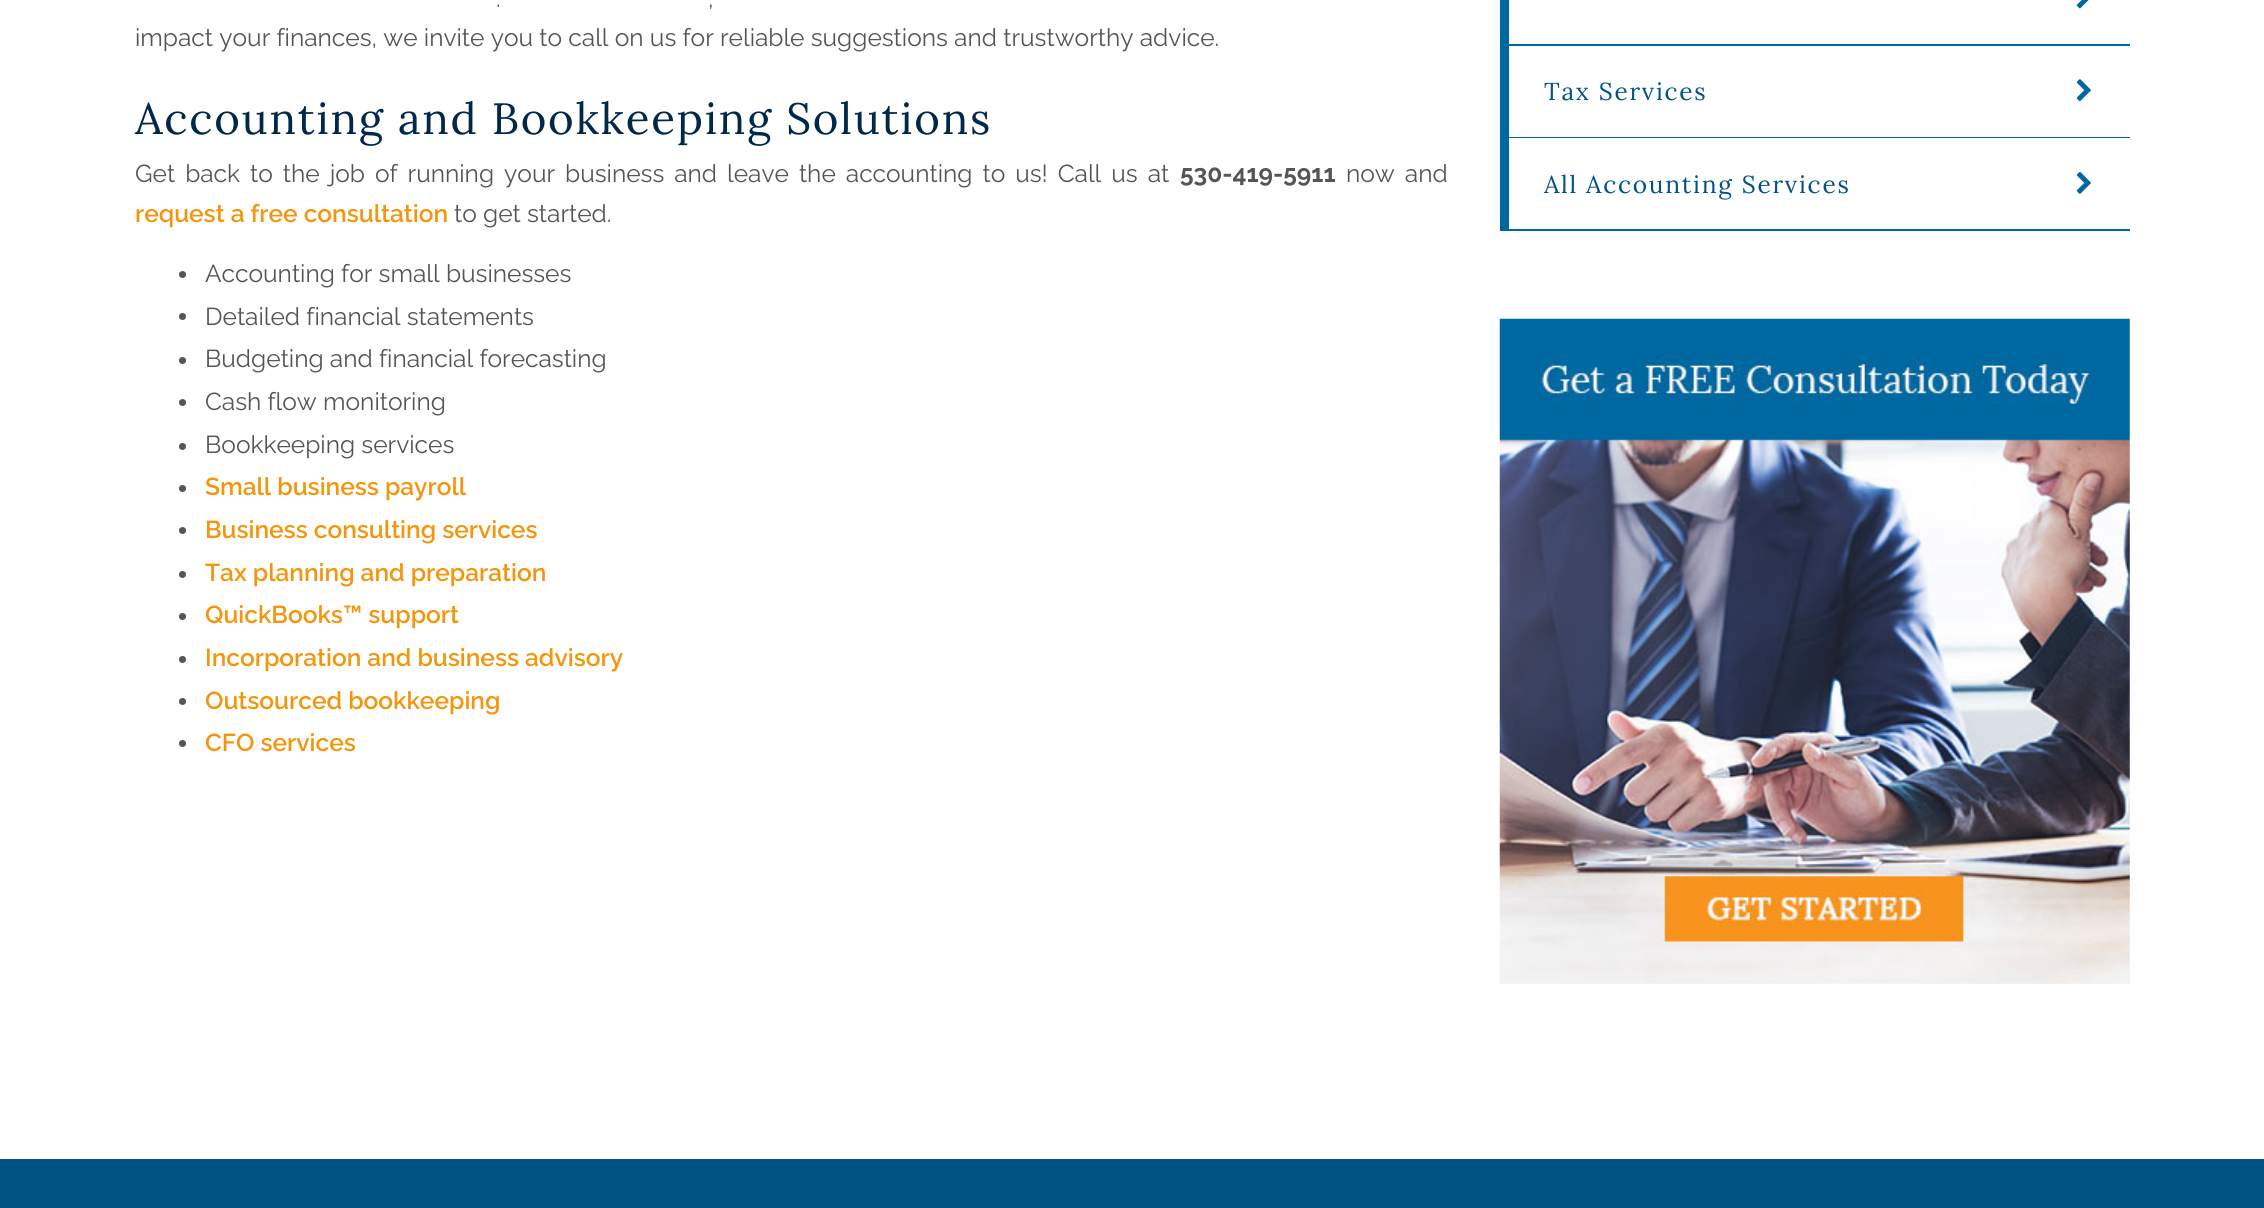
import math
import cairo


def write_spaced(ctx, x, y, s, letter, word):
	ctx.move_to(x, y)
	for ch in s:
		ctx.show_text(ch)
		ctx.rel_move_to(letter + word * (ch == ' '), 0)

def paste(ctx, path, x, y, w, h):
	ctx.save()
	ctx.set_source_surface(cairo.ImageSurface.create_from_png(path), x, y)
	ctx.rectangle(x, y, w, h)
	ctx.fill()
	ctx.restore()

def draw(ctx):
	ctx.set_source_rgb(1, 1, 1)
	ctx.paint()
	ctx.select_font_face('Raleway')
	ctx.set_font_size(24.5)
	ctx.set_source_rgb(0.333, 0.333, 0.333)
	write_spaced(ctx, 496, 7, '.', 0, 5)
	write_spaced(ctx, 708, 7, ',', 0, 5)
	ctx.move_to(135, 46)
	ctx.show_text('impact your finances, we invite you to call on us for reliable suggestions and trustworthy advice.')
	ctx.select_font_face('Lora')
	ctx.set_font_size(43.75)
	ctx.set_source_rgb(0, 0.157, 0.294)
	write_spaced(ctx, 135, 134, 'Accounting and Bookkeeping Solutions', 1.75, 0)
	ctx.select_font_face('Raleway')
	ctx.set_font_size(24.5)
	ctx.set_source_rgb(0.333, 0.333, 0.333)
	write_spaced(ctx, 135, 182, 'Get back to the job of running your business and leave the accounting to us! Call us at', 0, 3.75)
	ctx.select_font_face('Raleway', cairo.FONT_SLANT_NORMAL, cairo.FONT_WEIGHT_BOLD)
	ctx.move_to(1180, 182)
	ctx.show_text('530-419-5911')
	ctx.select_font_face('Raleway')
	write_spaced(ctx, 1346, 182, 'now and', 0, 3.75)
	ctx.select_font_face('Raleway SemiBold')
	ctx.set_source_rgb(0.957, 0.584, 0.047)
	ctx.move_to(135, 222)
	ctx.show_text('request a free consultation')
	ctx.select_font_face('Raleway')
	ctx.set_source_rgb(0.333, 0.333, 0.333)
	ctx.move_to(454, 222)
	ctx.show_text('to get started.')
	ctx.new_path()
	ctx.arc(182.5, 274.5, 3.5, 0, 2 * math.pi)
	ctx.fill()
	ctx.move_to(205, 282)
	ctx.show_text('Accounting for small businesses')
	ctx.new_path()
	ctx.arc(182.5, 316.5, 3.5, 0, 2 * math.pi)
	ctx.fill()
	ctx.move_to(205, 325)
	ctx.show_text('Detailed financial statements')
	ctx.new_path()
	ctx.arc(182.5, 360.5, 3.5, 0, 2 * math.pi)
	ctx.fill()
	ctx.move_to(205, 367)
	ctx.show_text('Budgeting and financial forecasting')
	ctx.new_path()
	ctx.arc(182.5, 402.5, 3.5, 0, 2 * math.pi)
	ctx.fill()
	ctx.move_to(205, 410)
	ctx.show_text('Cash flow monitoring')
	ctx.new_path()
	ctx.arc(182.5, 446.5, 3.5, 0, 2 * math.pi)
	ctx.fill()
	ctx.move_to(205, 453)
	ctx.show_text('Bookkeeping services')
	ctx.new_path()
	ctx.arc(182.5, 488.5, 3.5, 0, 2 * math.pi)
	ctx.fill()
	ctx.select_font_face('Raleway SemiBold')
	ctx.set_source_rgb(0.957, 0.584, 0.047)
	ctx.move_to(205, 495)
	ctx.show_text('Small business payroll')
	ctx.set_source_rgb(0.333, 0.333, 0.333)
	ctx.new_path()
	ctx.arc(182.5, 530.5, 3.5, 0, 2 * math.pi)
	ctx.fill()
	ctx.set_source_rgb(0.957, 0.584, 0.047)
	ctx.move_to(205, 538)
	ctx.show_text('Business consulting services')
	ctx.set_source_rgb(0.333, 0.333, 0.333)
	ctx.new_path()
	ctx.arc(182.5, 574.5, 3.5, 0, 2 * math.pi)
	ctx.fill()
	ctx.set_source_rgb(0.957, 0.584, 0.047)
	ctx.move_to(205, 581)
	ctx.show_text('Tax planning and preparation')
	ctx.set_source_rgb(0.333, 0.333, 0.333)
	ctx.new_path()
	ctx.arc(182.5, 616.5, 3.5, 0, 2 * math.pi)
	ctx.fill()
	ctx.set_source_rgb(0.957, 0.584, 0.047)
	ctx.move_to(205, 623)
	ctx.show_text('QuickBooks™ support')
	ctx.set_source_rgb(0.333, 0.333, 0.333)
	ctx.new_path()
	ctx.arc(182.5, 659.5, 3.5, 0, 2 * math.pi)
	ctx.fill()
	ctx.set_source_rgb(0.957, 0.584, 0.047)
	ctx.move_to(205, 666)
	ctx.show_text('Incorporation and business advisory')
	ctx.set_source_rgb(0.333, 0.333, 0.333)
	ctx.new_path()
	ctx.arc(182.5, 701.5, 3.5, 0, 2 * math.pi)
	ctx.fill()
	ctx.set_source_rgb(0.957, 0.584, 0.047)
	ctx.move_to(205, 709)
	ctx.show_text('Outsourced bookkeeping')
	ctx.set_source_rgb(0.333, 0.333, 0.333)
	ctx.new_path()
	ctx.arc(182.5, 743.5, 3.5, 0, 2 * math.pi)
	ctx.fill()
	ctx.set_source_rgb(0.957, 0.584, 0.047)
	ctx.move_to(205, 751)
	ctx.show_text('CFO services')
	ctx.set_source_rgb(0, 0.408, 0.627)
	ctx.rectangle(1509, 44, 621, 2)
	ctx.fill()
	ctx.rectangle(1500, 0, 9, 231)
	ctx.fill()
	paste(ctx, 'media/1.png', 2076, 0, 13, 9)
	ctx.rectangle(1509, 137, 621, 1)
	ctx.fill()
	ctx.select_font_face('Lora')
	ctx.set_source_rgb(0, 0.329, 0.518)
	write_spaced(ctx, 1544, 100, 'Tax Services', 1.75, 0)
	paste(ctx, 'media/2.png', 2076, 79, 15, 23)
	ctx.set_source_rgb(0, 0.408, 0.627)
	ctx.rectangle(1509, 229, 621, 2)
	ctx.fill()
	ctx.set_source_rgb(0, 0.329, 0.518)
	write_spaced(ctx, 1544, 193, 'All Accounting Services', 1.75, 0)
	paste(ctx, 'media/3.png', 2076, 171, 15, 23)
	paste(ctx, 'media/4.png', 1499, 318, 631, 666)
	ctx.rectangle(0, 1159, 2264, 49)
	ctx.fill()


surface = cairo.ImageSurface(cairo.FORMAT_RGB24, 2264, 1208)
ctx = cairo.Context(surface)
options = cairo.FontOptions()
options.set_hint_metrics(cairo.HINT_METRICS_OFF)
options.set_hint_style(cairo.HINT_STYLE_NONE)
ctx.set_font_options(options)
ctx.set_miter_limit(4)
draw(ctx)
surface.write_to_png('image.png')
